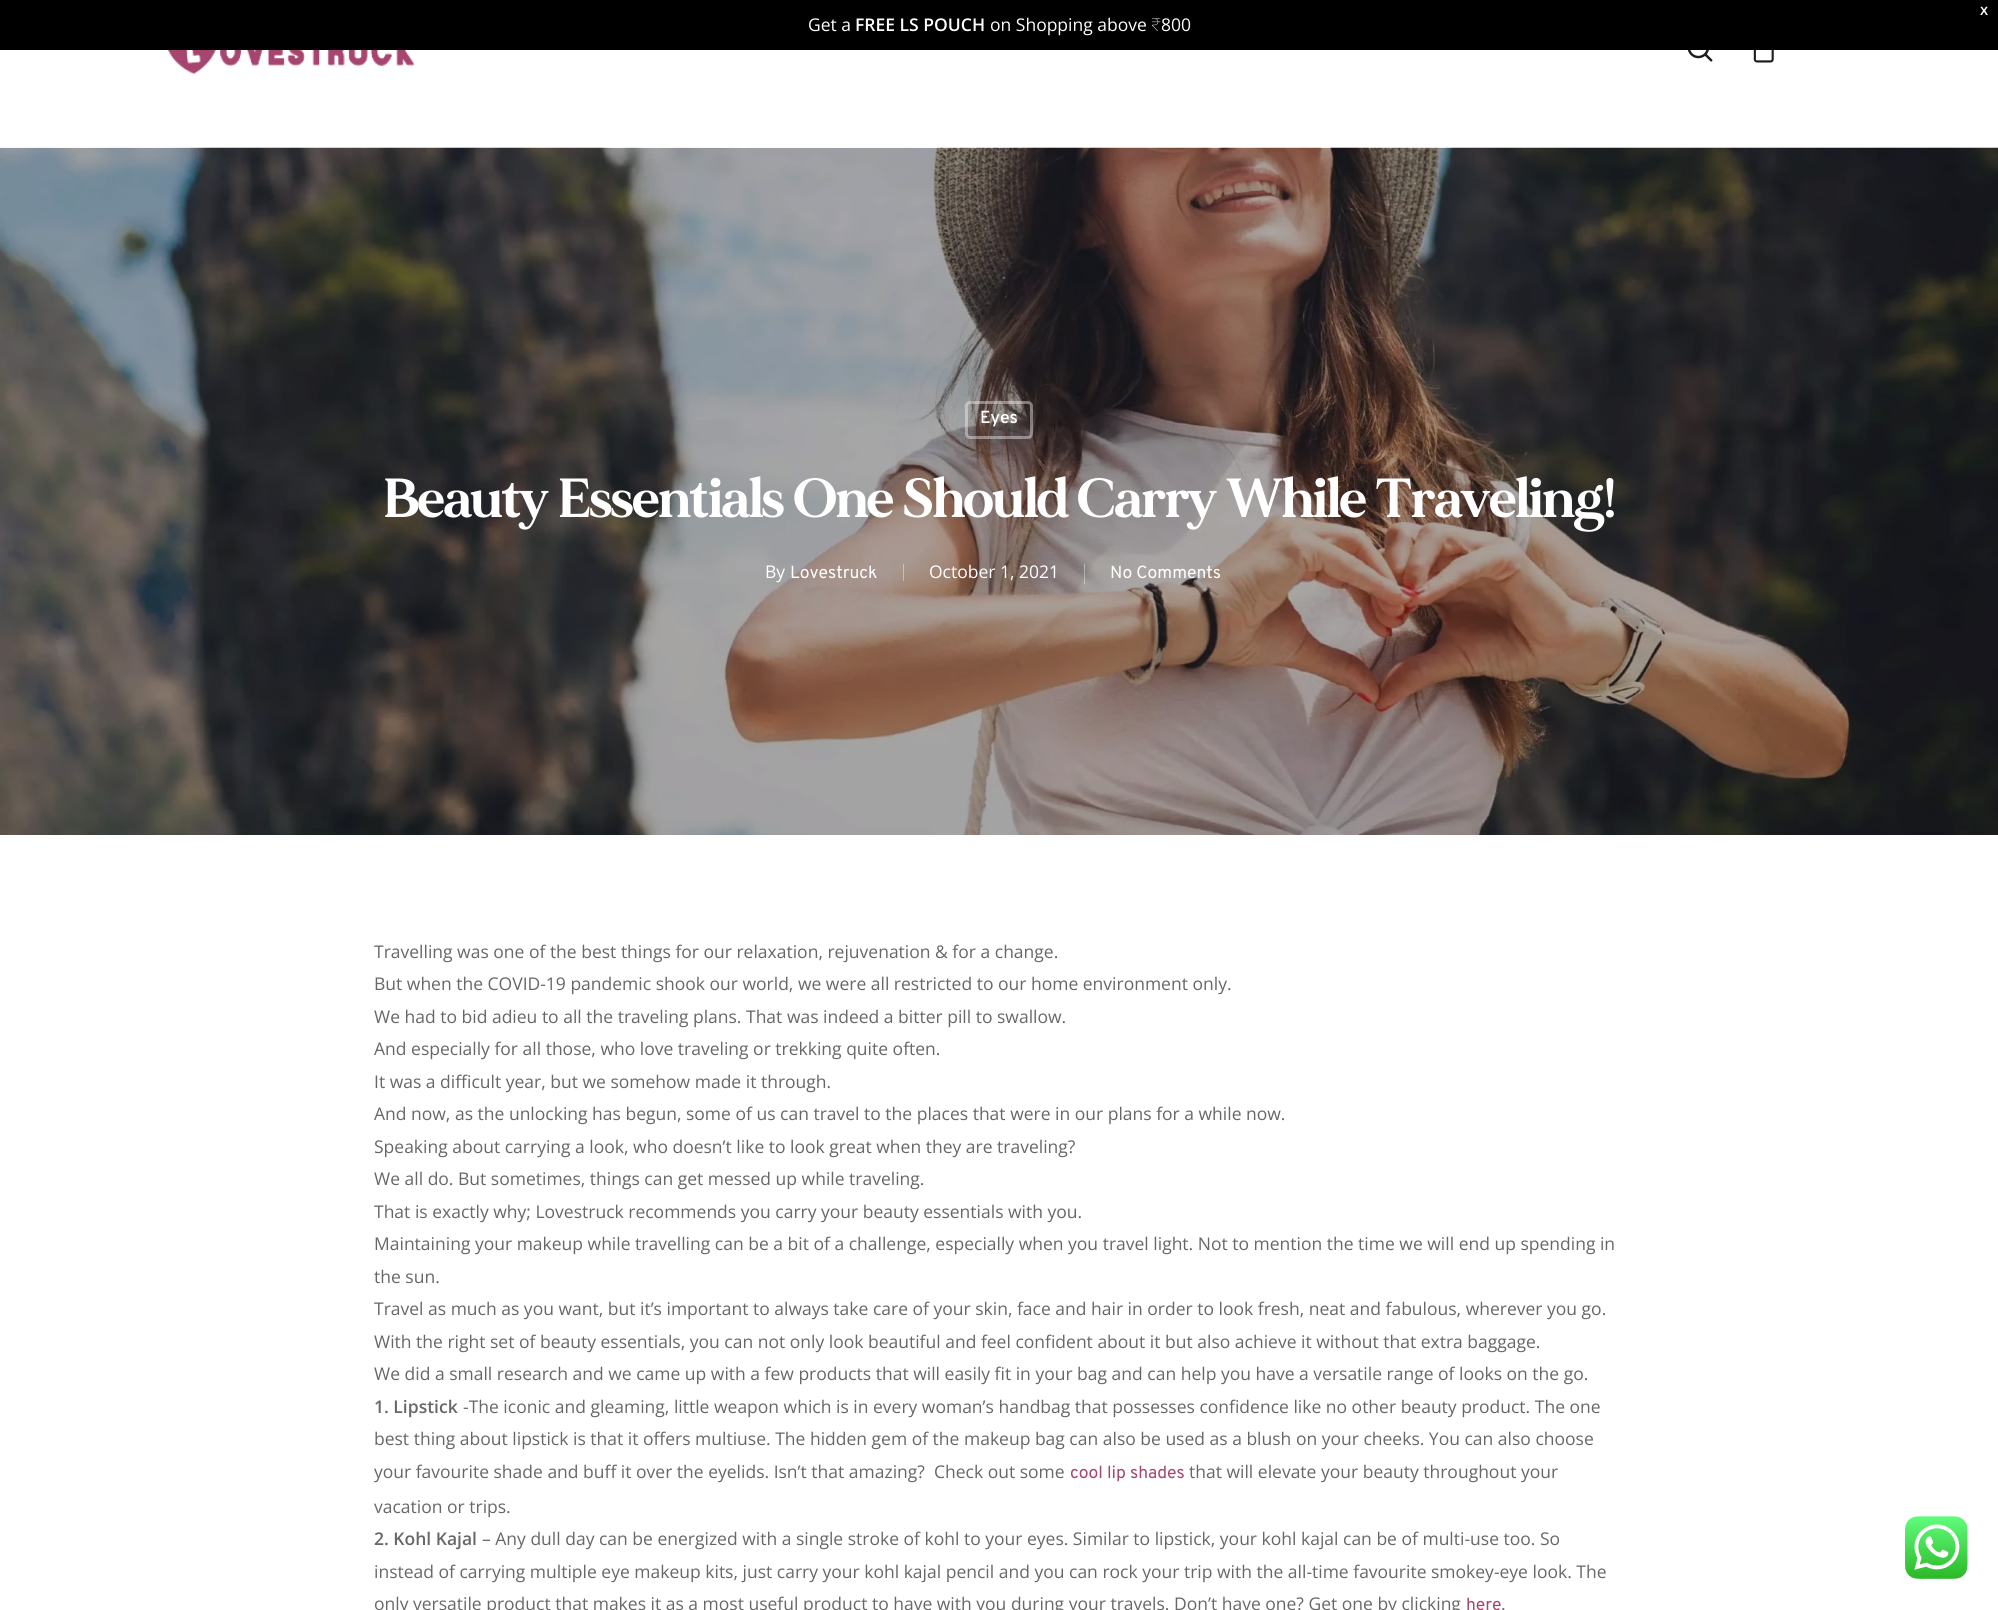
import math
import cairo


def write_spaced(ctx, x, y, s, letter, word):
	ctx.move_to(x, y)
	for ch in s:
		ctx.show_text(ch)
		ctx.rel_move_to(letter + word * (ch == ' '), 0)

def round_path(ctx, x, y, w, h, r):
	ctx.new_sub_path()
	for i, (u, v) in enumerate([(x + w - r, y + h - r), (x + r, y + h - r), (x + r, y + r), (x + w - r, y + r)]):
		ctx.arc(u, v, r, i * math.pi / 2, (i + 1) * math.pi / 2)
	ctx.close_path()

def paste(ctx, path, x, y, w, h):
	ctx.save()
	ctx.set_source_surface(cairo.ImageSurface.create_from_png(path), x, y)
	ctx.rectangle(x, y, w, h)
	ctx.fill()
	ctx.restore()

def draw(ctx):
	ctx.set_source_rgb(1, 1, 1)
	ctx.paint()
	ctx.set_source_rgb(0, 0, 0)
	ctx.rectangle(0, 0, 1998, 50)
	ctx.fill()
	ctx.select_font_face('Liberation Sans', cairo.FONT_SLANT_NORMAL, cairo.FONT_WEIGHT_BOLD)
	ctx.set_font_size(12)
	ctx.set_source_rgb(1, 1, 1)
	ctx.move_to(1980, 15)
	ctx.show_text('X')
	ctx.select_font_face('Open Sans')
	ctx.set_font_size(17.5)
	ctx.move_to(808, 31)
	ctx.show_text('Get a')
	ctx.select_font_face('Open Sans SemiBold')
	ctx.move_to(855, 31)
	ctx.show_text('FREE LS POUCH')
	ctx.select_font_face('Open Sans')
	ctx.move_to(990, 31)
	ctx.show_text('on Shopping above')
	ctx.select_font_face('Noto Sans Thin')
	ctx.move_to(1151, 31)
	ctx.show_text('₹')
	ctx.select_font_face('Open Sans')
	ctx.move_to(1161, 31)
	ctx.show_text('800')
	paste(ctx, 'media/1.png', 167, 50, 247, 24)
	paste(ctx, 'media/2.png', 1687, 50, 26, 12)
	paste(ctx, 'media/3.png', 1753, 50, 21, 13)
	paste(ctx, 'media/4.png', 0, 147, 1998, 688)
	round_path(ctx, 966.5, 402.5, 65, 35, 3.5)
	ctx.set_source_rgba(1, 1, 1, 0.4)
	ctx.set_line_width(3)
	ctx.stroke()
	ctx.select_font_face('Overpass SemiBold')
	ctx.set_source_rgb(1, 1, 1)
	ctx.move_to(980, 423)
	ctx.show_text('Eyes')
	ctx.select_font_face('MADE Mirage', cairo.FONT_SLANT_NORMAL, cairo.FONT_WEIGHT_BOLD)
	ctx.set_font_size(55)
	write_spaced(ctx, 383, 517, 'Beauty Essentials One Should Carry While Traveling!', -1.25, 0)
	ctx.select_font_face('Open Sans')
	ctx.set_font_size(17.5)
	ctx.move_to(765, 578)
	ctx.show_text('By')
	ctx.select_font_face('Overpass')
	ctx.move_to(790, 578)
	ctx.show_text('Lovestruck')
	ctx.set_source_rgba(1, 1, 1, 0.4)
	ctx.rectangle(903, 564, 1, 17)
	ctx.fill()
	ctx.select_font_face('Open Sans')
	ctx.set_source_rgb(1, 1, 1)
	ctx.move_to(929, 578)
	ctx.show_text('October 1, 2021')
	ctx.set_source_rgba(1, 1, 1, 0.4)
	ctx.rectangle(1084, 564, 1, 20)
	ctx.fill()
	ctx.select_font_face('Overpass')
	ctx.set_source_rgb(1, 1, 1)
	ctx.move_to(1110, 578)
	ctx.show_text('No Comments')
	ctx.select_font_face('Open Sans')
	ctx.set_source_rgb(0.404, 0.404, 0.404)
	for x, y, s in [
		(374, 958, 'Travelling was one of the best things for our relaxation, rejuvenation & for a change.'),
		(374, 990, 'But when the COVID-19 pandemic shook our world, we were all restricted to our home environment only.'),
		(374, 1023, 'We had to bid adieu to all the traveling plans. That was indeed a bitter pill to swallow.'),
		(374, 1055, 'And especially for all those, who love traveling or trekking quite often.'),
		(374, 1088, 'It was a difficult year, but we somehow made it through.'),
		(374, 1120, 'And now, as the unlocking has begun, some of us can travel to the places that were in our plans for a while now.'),
		(374, 1153, 'Speaking about carrying a look, who doesn’t like to look great when they are traveling?'),
		(374, 1185, 'We all do. But sometimes, things can get messed up while traveling.'),
		(374, 1218, 'That is exactly why; Lovestruck recommends you carry your beauty essentials with you.'),
		(374, 1250, 'Maintaining your makeup while travelling can be a bit of a challenge, especially when you travel light. Not to mention the time we will end up spending in'),
		(374, 1283, 'the sun.'),
		(374, 1315, 'Travel as much as you want, but it’s important to always take care of your skin, face and hair in order to look fresh, neat and fabulous, wherever you go.'),
		(374, 1348, 'With the right set of beauty essentials, you can not only look beautiful and feel confident about it but also achieve it without that extra baggage.'),
		(374, 1380, 'We did a small research and we came up with a few products that will easily fit in your bag and can help you have a versatile range of looks on the go.'),
	]:
		ctx.move_to(x, y)
		ctx.show_text(s)
	ctx.select_font_face('Open Sans SemiBold')
	ctx.move_to(374, 1413)
	ctx.show_text('1. Lipstick')
	ctx.select_font_face('Open Sans')
	for x, y, s in [
		(463, 1413, '-The iconic and gleaming, little weapon which is in every woman’s handbag that possesses confidence like no other beauty product. The one'),
		(374, 1445, 'best thing about lipstick is that it offers multiuse. The hidden gem of the makeup bag can also be used as a blush on your cheeks. You can also choose'),
		(374, 1478, 'your favourite shade and buff it over the eyelids. Isn’t that amazing?  Check out some'),
	]:
		ctx.move_to(x, y)
		ctx.show_text(s)
	ctx.select_font_face('Overpass')
	ctx.set_source_rgb(0.651, 0.271, 0.439)
	ctx.move_to(1070, 1478)
	ctx.show_text('cool lip shades')
	ctx.select_font_face('Open Sans')
	ctx.set_source_rgb(0.404, 0.404, 0.404)
	ctx.move_to(1189, 1478)
	ctx.show_text('that will elevate your beauty throughout your')
	ctx.move_to(374, 1513)
	ctx.show_text('vacation or trips.')
	ctx.select_font_face('Open Sans SemiBold')
	ctx.move_to(374, 1545)
	ctx.show_text('2. Kohl Kajal')
	ctx.select_font_face('Open Sans')
	for x, y, s in [
		(482, 1545, '– Any dull day can be energized with a single stroke of kohl to your eyes. Similar to lipstick, your kohl kajal can be of multi-use too. So'),
		(374, 1578, 'instead of carrying multiple eye makeup kits, just carry your kohl kajal pencil and you can rock your trip with the all-time favourite smokey-eye look. The'),
		(374, 1610, 'only versatile product that makes it as a most useful product to have with you during your travels. Don’t have one? Get one by clicking'),
	]:
		ctx.move_to(x, y)
		ctx.show_text(s)
	ctx.select_font_face('Overpass')
	ctx.set_source_rgb(0.651, 0.271, 0.439)
	ctx.move_to(1466, 1610)
	ctx.show_text('here')
	ctx.select_font_face('Open Sans')
	ctx.set_source_rgb(0.404, 0.404, 0.404)
	ctx.move_to(1501, 1610)
	ctx.show_text('.')
	paste(ctx, 'media/5.png', 1905, 1516, 63, 63)


surface = cairo.ImageSurface(cairo.FORMAT_RGB24, 1998, 1610)
ctx = cairo.Context(surface)
options = cairo.FontOptions()
options.set_hint_metrics(cairo.HINT_METRICS_OFF)
options.set_hint_style(cairo.HINT_STYLE_NONE)
ctx.set_font_options(options)
ctx.set_miter_limit(4)
draw(ctx)
surface.write_to_png('image.png')
